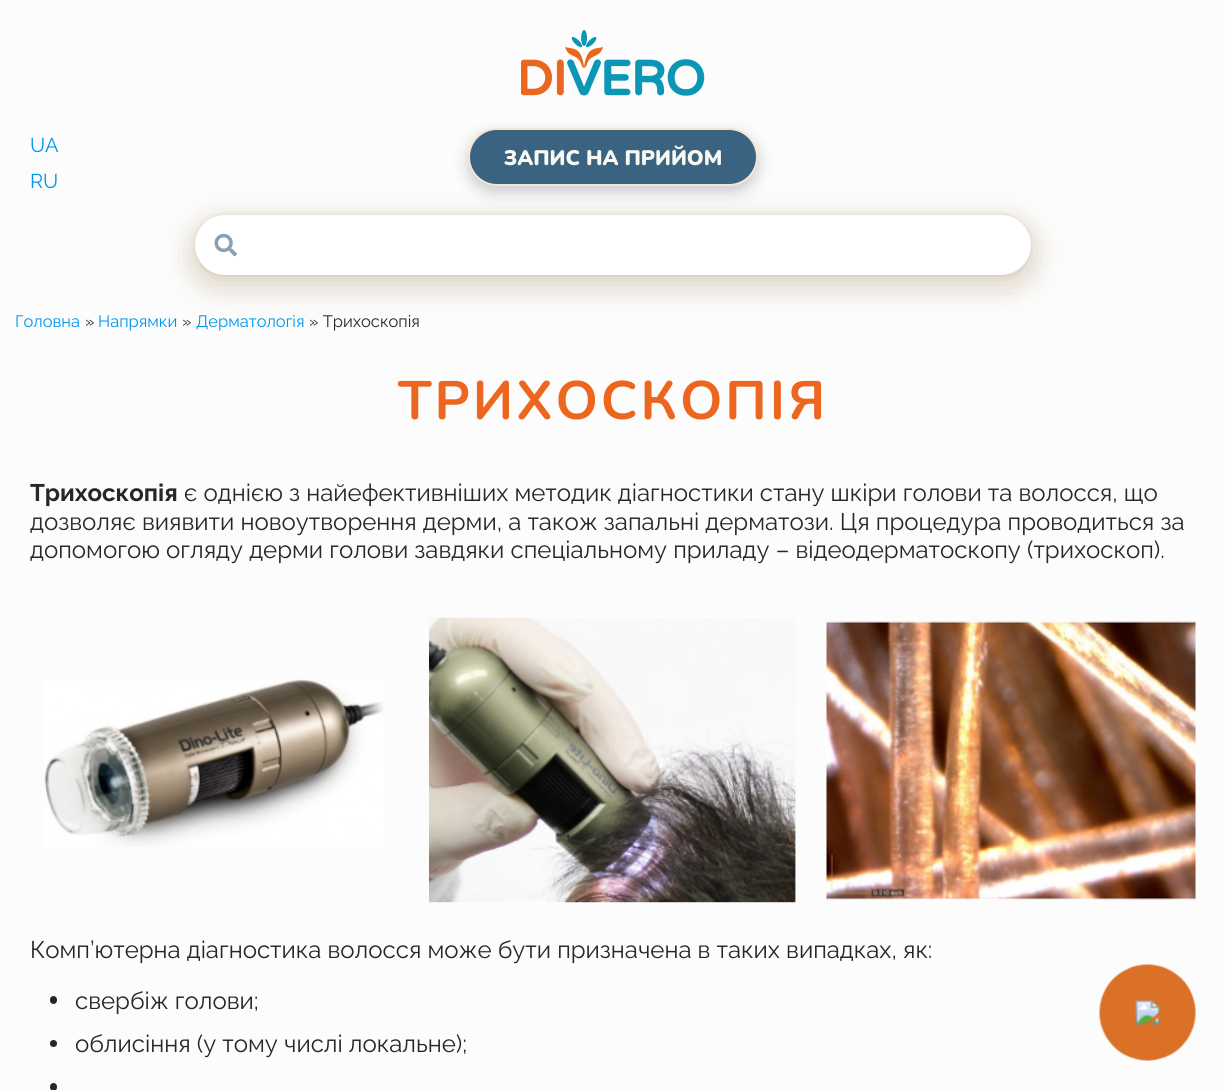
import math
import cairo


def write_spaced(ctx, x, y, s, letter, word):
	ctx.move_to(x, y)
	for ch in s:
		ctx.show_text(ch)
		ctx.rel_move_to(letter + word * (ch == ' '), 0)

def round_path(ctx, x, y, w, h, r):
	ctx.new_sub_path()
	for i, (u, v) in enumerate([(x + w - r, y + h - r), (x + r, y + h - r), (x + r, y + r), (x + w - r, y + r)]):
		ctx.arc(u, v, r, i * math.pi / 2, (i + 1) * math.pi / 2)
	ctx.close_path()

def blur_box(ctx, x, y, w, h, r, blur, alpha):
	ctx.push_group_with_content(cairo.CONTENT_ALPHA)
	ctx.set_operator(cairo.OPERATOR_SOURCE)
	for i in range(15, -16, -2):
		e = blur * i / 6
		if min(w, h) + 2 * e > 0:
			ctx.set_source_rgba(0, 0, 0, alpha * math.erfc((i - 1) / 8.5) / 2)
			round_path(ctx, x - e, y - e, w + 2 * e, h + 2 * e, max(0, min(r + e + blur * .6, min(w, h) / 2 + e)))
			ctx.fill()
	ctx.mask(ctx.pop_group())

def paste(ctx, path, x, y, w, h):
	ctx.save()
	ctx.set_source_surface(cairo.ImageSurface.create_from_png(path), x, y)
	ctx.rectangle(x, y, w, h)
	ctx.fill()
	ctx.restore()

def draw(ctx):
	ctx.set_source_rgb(0.988, 0.988, 0.988)
	ctx.paint()
	paste(ctx, 'media/1.png', 521, 30, 184, 66)
	ctx.select_font_face('Raleway')
	ctx.set_font_size(20)
	ctx.set_source_rgb(0, 0.584, 0.922)
	ctx.move_to(30, 152)
	ctx.show_text('UA')
	ctx.move_to(30, 188)
	ctx.show_text('RU')
	ctx.set_source_rgb(0.161, 0.22, 0.263)
	blur_box(ctx, 468, 134, 290, 58, 29, 7.5, 0.25)
	ctx.set_source_rgb(0.227, 0.388, 0.506)
	round_path(ctx, 469, 129, 288, 56, 28)
	ctx.fill_preserve()
	ctx.set_source_rgb(0.957, 0.906, 0.82)
	ctx.stroke()
	ctx.select_font_face('Nunito Black')
	ctx.set_font_size(21)
	ctx.set_source_rgb(0.976, 0.973, 0.953)
	ctx.move_to(504, 165)
	ctx.show_text('ЗАПИС НА ПРИЙОМ')
	ctx.set_source_rgb(0.659, 0.557, 0.384)
	blur_box(ctx, 195, 224, 836, 60, 30, 15, 0.45)
	blur_box(ctx, 195, 215, 836, 60, 30, 2, 0.25)
	ctx.set_source_rgb(1, 1, 1)
	round_path(ctx, 195, 215, 836, 60, 30)
	ctx.fill()
	paste(ctx, 'media/2.png', 214, 233, 23, 24)
	ctx.select_font_face('Raleway')
	ctx.set_font_size(16.5)
	ctx.set_source_rgb(0, 0.584, 0.922)
	ctx.move_to(15, 327)
	ctx.show_text('Головна')
	ctx.set_source_rgb(0.141, 0.157, 0.169)
	ctx.move_to(85, 327)
	ctx.show_text('»')
	ctx.set_source_rgb(0, 0.584, 0.922)
	ctx.move_to(98, 327)
	ctx.show_text('Напрямки')
	ctx.set_source_rgb(0.141, 0.157, 0.169)
	ctx.move_to(182, 327)
	ctx.show_text('»')
	ctx.set_source_rgb(0, 0.584, 0.922)
	ctx.move_to(196, 327)
	ctx.show_text('Дерматологія')
	ctx.set_source_rgb(0.141, 0.157, 0.169)
	ctx.move_to(309, 327)
	ctx.show_text('» Трихоскопія')
	ctx.select_font_face('Nunito', cairo.FONT_SLANT_NORMAL, cairo.FONT_WEIGHT_BOLD)
	ctx.set_font_size(54)
	ctx.set_source_rgb(0.922, 0.4, 0.125)
	write_spaced(ctx, 398, 419, 'ТРИХОСКОПІЯ', 3, 0)
	ctx.select_font_face('Raleway', cairo.FONT_SLANT_NORMAL, cairo.FONT_WEIGHT_BOLD)
	ctx.set_font_size(24)
	ctx.set_source_rgb(0.141, 0.157, 0.169)
	ctx.move_to(30, 501)
	ctx.show_text('Трихоскопія')
	ctx.select_font_face('Raleway')
	for x, y, s in [
		(184, 501, 'є однією з найефективніших методик діагностики стану шкіри голови та волосся, що'),
		(30, 530, 'дозволяє виявити новоутворення дерми, а також запальні дерматози. Ця процедура проводиться за'),
		(30, 558, 'допомогою огляду дерми голови завдяки спеціальному приладу – відеодерматоскопу (трихоскоп).'),
	]:
		ctx.move_to(x, y)
		ctx.show_text(s)
	paste(ctx, 'media/3.png', 44, 679, 340, 168)
	paste(ctx, 'media/4.png', 429, 617, 367, 286)
	paste(ctx, 'media/5.png', 826, 621, 370, 279)
	ctx.move_to(30, 958)
	ctx.show_text('Комп’ютерна діагностика волосся може бути призначена в таких випадках, як:')
	round_path(ctx, 50, 996, 7, 8, 3.5)
	ctx.fill()
	ctx.move_to(75, 1009)
	ctx.show_text('свербіж голови;')
	ctx.new_path()
	ctx.arc(53.5, 1043.5, 3.5, 0, 2 * math.pi)
	ctx.fill()
	ctx.move_to(75, 1052)
	ctx.show_text('облисіння (у тому числі локальне);')
	round_path(ctx, 50, 1083, 7, 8, 3.5)
	ctx.fill()
	paste(ctx, 'media/6.png', 1099, 964, 97, 97)


surface = cairo.ImageSurface(cairo.FORMAT_RGB24, 1225, 1090)
ctx = cairo.Context(surface)
options = cairo.FontOptions()
options.set_hint_metrics(cairo.HINT_METRICS_OFF)
options.set_hint_style(cairo.HINT_STYLE_NONE)
ctx.set_font_options(options)
ctx.set_miter_limit(4)
draw(ctx)
surface.write_to_png('image.png')
